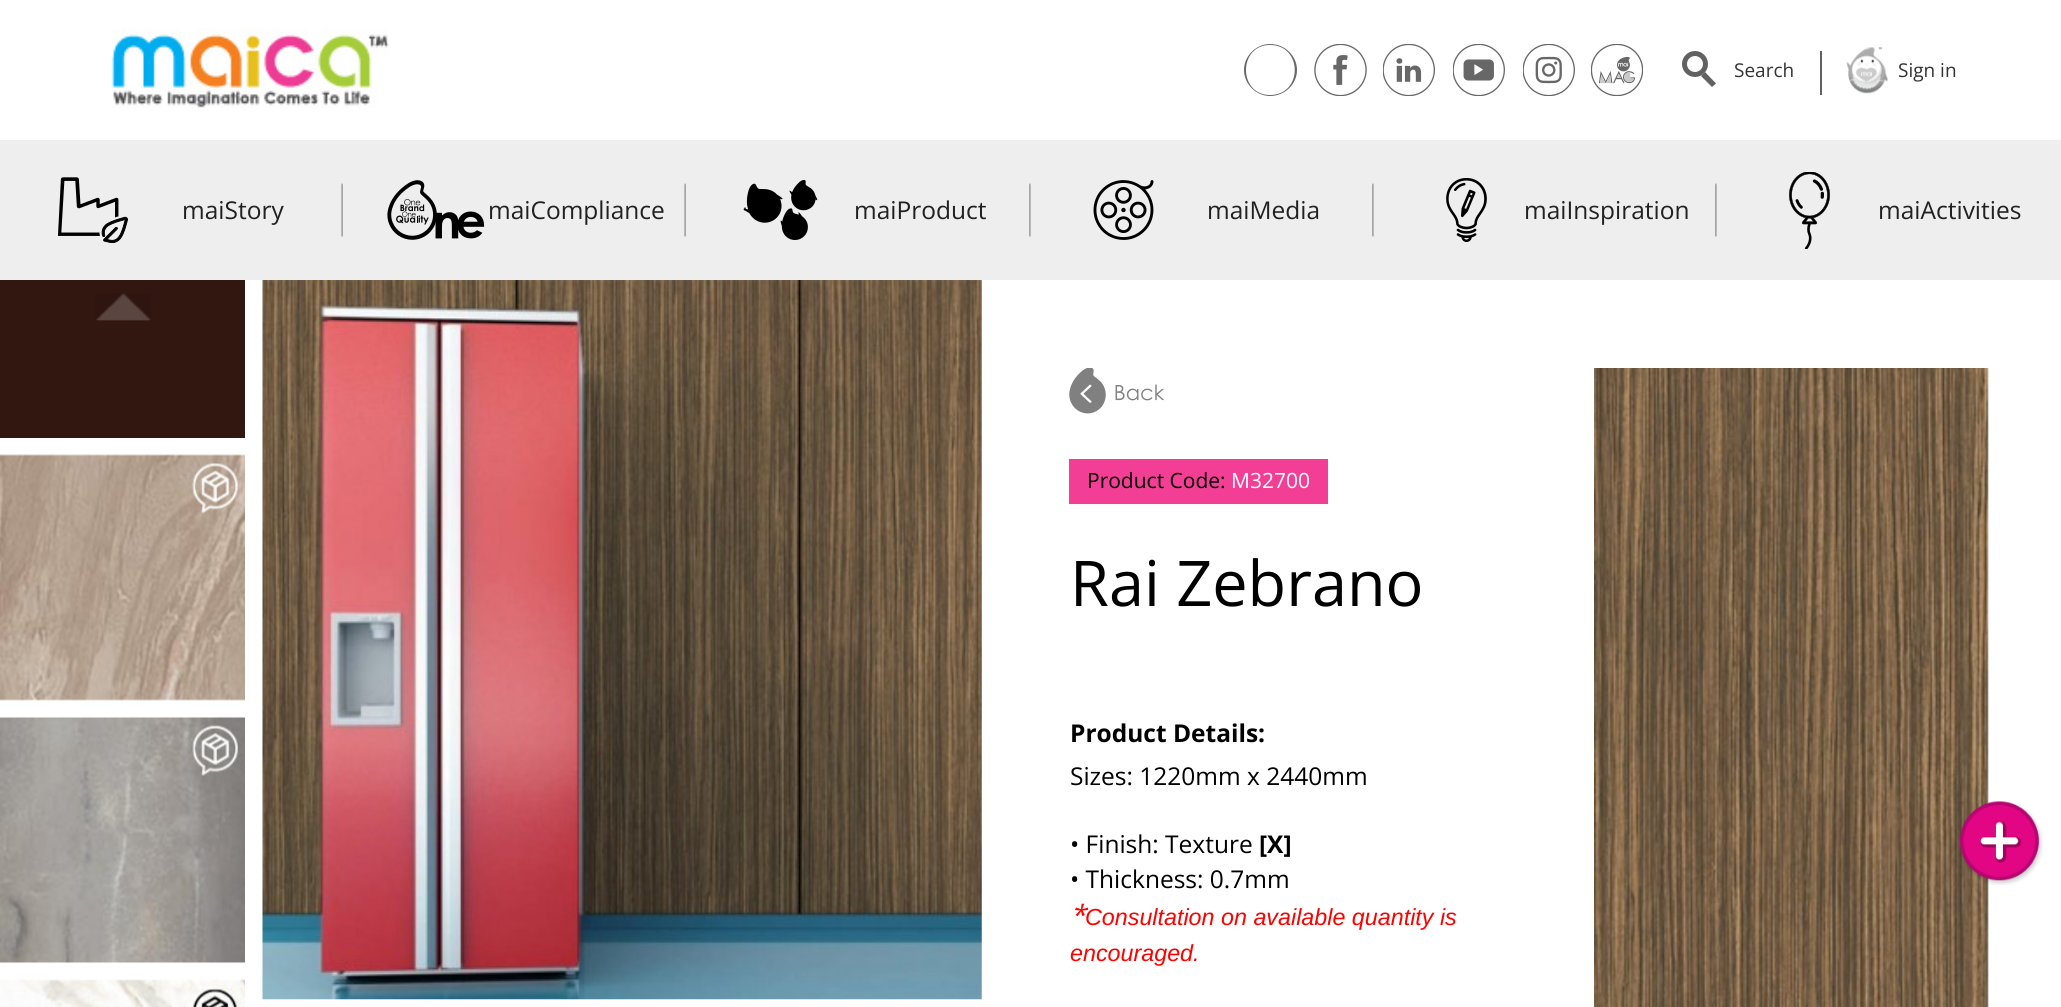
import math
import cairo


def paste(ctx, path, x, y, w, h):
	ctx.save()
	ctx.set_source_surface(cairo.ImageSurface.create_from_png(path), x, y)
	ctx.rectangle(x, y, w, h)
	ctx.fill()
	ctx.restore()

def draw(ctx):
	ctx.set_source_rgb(1, 1, 1)
	ctx.paint()
	paste(ctx, 'media/1.png', 111, 28, 278, 80)
	ctx.set_source_rgb(0.404, 0.404, 0.404)
	ctx.new_path()
	ctx.move_to(1270, 45)
	ctx.curve_to(1303, 45, 1303, 95, 1270, 95)
	ctx.curve_to(1238, 95, 1238, 45, 1270, 45)
	ctx.move_to(1270, 44)
	ctx.curve_to(1256, 44, 1244, 56, 1244, 70)
	ctx.curve_to(1244, 84, 1256, 96, 1270, 96)
	ctx.curve_to(1285, 96, 1297, 84, 1297, 70)
	ctx.curve_to(1297, 56, 1285, 44, 1270, 44)
	ctx.close_path()
	ctx.fill()
	paste(ctx, 'media/2.png', 1314, 44, 53, 52)
	paste(ctx, 'media/3.png', 1383, 44, 52, 52)
	paste(ctx, 'media/4.png', 1453, 44, 52, 52)
	paste(ctx, 'media/5.png', 1523, 44, 52, 52)
	paste(ctx, 'media/6.png', 1591, 44, 52, 52)
	ctx.arc(1695, 64, 10.5, 0, 2 * math.pi)
	ctx.set_source_rgb(0.38, 0.38, 0.38)
	ctx.set_line_width(5)
	ctx.stroke()
	ctx.select_font_face('Open Sans')
	ctx.set_font_size(19)
	ctx.set_source_rgb(0.2, 0.2, 0.2)
	ctx.move_to(1734, 77)
	ctx.show_text('Search')
	ctx.set_source_rgb(0.38, 0.38, 0.38)
	ctx.rectangle(1820, 51, 2, 44)
	ctx.fill()
	ctx.new_path()
	ctx.move_to(1705, 72)
	ctx.line_to(1716, 83.5)
	ctx.line_to(1712, 87)
	ctx.line_to(1701, 76)
	ctx.close_path()
	ctx.fill()
	paste(ctx, 'media/7.png', 1846, 47, 43, 47)
	ctx.set_source_rgb(0.2, 0.2, 0.2)
	ctx.move_to(1898, 77)
	ctx.show_text('Sign in')
	ctx.set_source_rgb(0.933, 0.933, 0.933)
	ctx.rectangle(0, 140, 2061, 140)
	ctx.fill()
	paste(ctx, 'media/8.png', 341, 183, 2, 54)
	paste(ctx, 'media/9.png', 58, 177, 70, 67)
	ctx.set_font_size(24.5)
	ctx.set_source_rgb(0.129, 0.129, 0.129)
	ctx.move_to(182, 219)
	ctx.show_text('maiStory')
	paste(ctx, 'media/8.png', 684, 183, 2, 54)
	paste(ctx, 'media/10.png', 387, 180, 98, 60)
	ctx.move_to(488, 219)
	ctx.show_text('maiCompliance')
	paste(ctx, 'media/11.png', 1029, 183, 2, 54)
	paste(ctx, 'media/12.png', 743, 180, 75, 60)
	ctx.move_to(854, 219)
	ctx.show_text('maiProduct')
	paste(ctx, 'media/11.png', 1372, 183, 2, 54)
	paste(ctx, 'media/13.png', 1093, 180, 61, 60)
	ctx.move_to(1207, 219)
	ctx.show_text('maiMedia')
	paste(ctx, 'media/11.png', 1715, 183, 2, 54)
	paste(ctx, 'media/14.png', 1446, 178, 41, 64)
	ctx.move_to(1524, 219)
	ctx.show_text('maiInspiration')
	paste(ctx, 'media/15.png', 1789, 172, 41, 77)
	ctx.move_to(1878, 219)
	ctx.show_text('maiActivities')
	ctx.set_source_rgb(0.196, 0.09, 0.063)
	ctx.rectangle(0, 280, 245, 158)
	ctx.fill()
	paste(ctx, 'media/16.png', 0, 454, 245, 247)
	paste(ctx, 'media/17.png', 0, 717, 245, 246)
	paste(ctx, 'media/18.png', 0, 979, 245, 28)
	paste(ctx, 'media/19.png', 95, 293, 56, 28)
	paste(ctx, 'media/20.png', 262, 280, 720, 720)
	paste(ctx, 'media/21.png', 1069, 368, 96, 46)
	ctx.set_source_rgb(0.949, 0.247, 0.584)
	ctx.rectangle(1069, 459, 259, 45)
	ctx.fill()
	ctx.set_font_size(21)
	ctx.set_source_rgb(0, 0, 0)
	ctx.move_to(1087, 488)
	ctx.show_text('Product Code:')
	ctx.set_source_rgb(1, 1, 1)
	ctx.move_to(1231, 488)
	ctx.show_text('M32700')
	ctx.set_font_size(63)
	ctx.set_source_rgb(0, 0, 0)
	ctx.move_to(1070, 606)
	ctx.show_text('Rai Zebrano')
	ctx.select_font_face('Open Sans', cairo.FONT_SLANT_NORMAL, cairo.FONT_WEIGHT_BOLD)
	ctx.set_font_size(24.5)
	ctx.move_to(1070, 742)
	ctx.show_text('Product Details:')
	ctx.select_font_face('Open Sans')
	ctx.move_to(1070, 785)
	ctx.show_text('Sizes: 1220mm x 2440mm')
	ctx.move_to(1070, 853)
	ctx.show_text('• Finish: Texture')
	ctx.select_font_face('Open Sans', cairo.FONT_SLANT_NORMAL, cairo.FONT_WEIGHT_BOLD)
	ctx.move_to(1259, 853)
	ctx.show_text('[X]')
	ctx.select_font_face('Open Sans')
	ctx.move_to(1070, 888)
	ctx.show_text('• Thickness: 0.7mm')
	ctx.select_font_face('Open Sans', cairo.FONT_SLANT_ITALIC)
	ctx.set_font_size(28)
	ctx.set_source_rgb(1, 0, 0)
	ctx.move_to(1070, 925)
	ctx.show_text('*')
	ctx.select_font_face('Liberation Sans', cairo.FONT_SLANT_ITALIC)
	ctx.set_font_size(23.3)
	ctx.move_to(1085, 925)
	ctx.show_text('Consultation on available quantity is')
	ctx.move_to(1070, 961)
	ctx.show_text('encouraged.')
	paste(ctx, 'media/22.png', 1594, 368, 395, 639)
	paste(ctx, 'media/23.png', 1960, 801, 83, 84)


surface = cairo.ImageSurface(cairo.FORMAT_RGB24, 2061, 1007)
ctx = cairo.Context(surface)
options = cairo.FontOptions()
options.set_hint_metrics(cairo.HINT_METRICS_OFF)
options.set_hint_style(cairo.HINT_STYLE_NONE)
ctx.set_font_options(options)
ctx.set_miter_limit(4)
draw(ctx)
surface.write_to_png('image.png')
